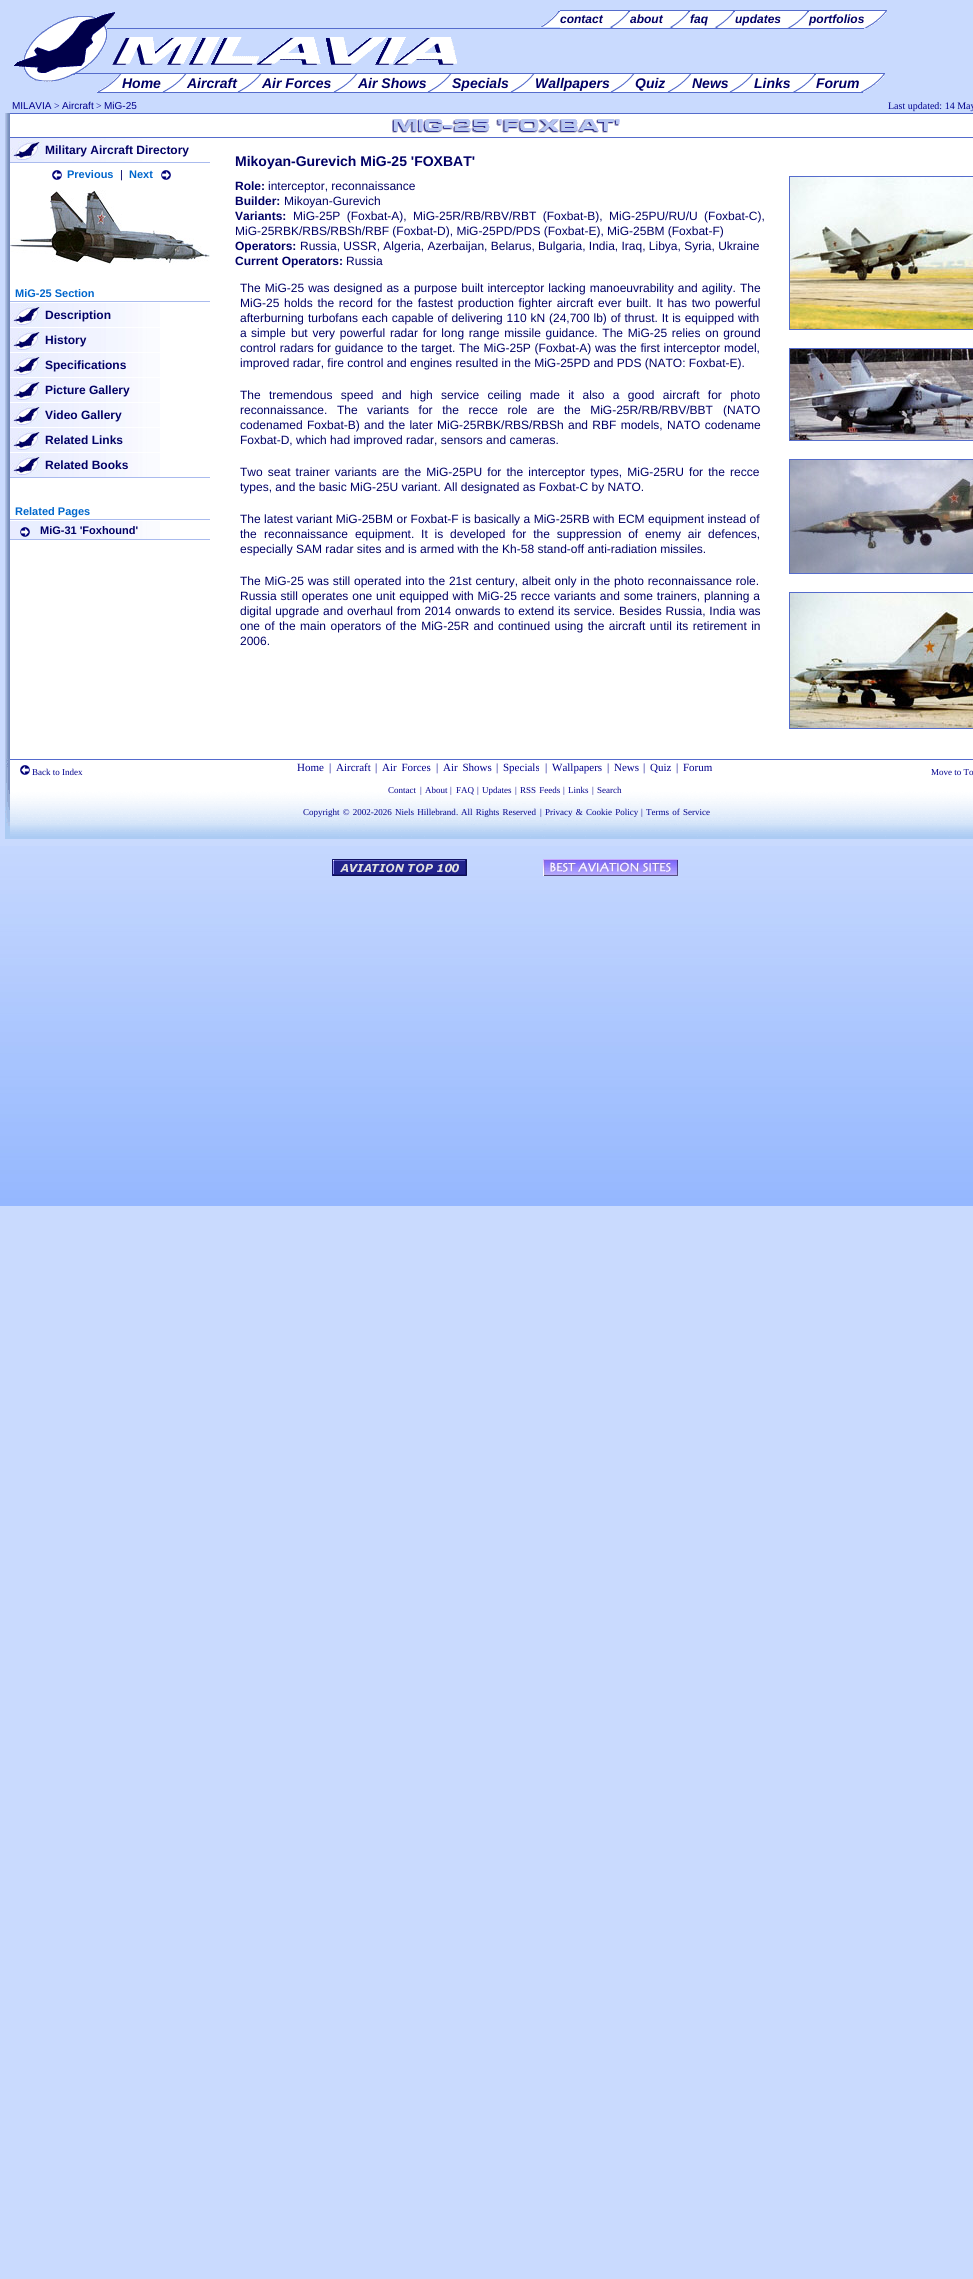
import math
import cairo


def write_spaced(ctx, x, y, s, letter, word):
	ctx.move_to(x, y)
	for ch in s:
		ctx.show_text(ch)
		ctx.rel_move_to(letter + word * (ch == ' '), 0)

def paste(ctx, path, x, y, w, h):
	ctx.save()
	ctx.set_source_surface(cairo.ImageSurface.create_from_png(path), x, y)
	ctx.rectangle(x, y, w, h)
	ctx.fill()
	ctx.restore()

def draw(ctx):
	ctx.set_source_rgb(0.788, 0.855, 0.996)
	ctx.paint()
	paste(ctx, 'media/1.png', 0, 846, 973, 360)
	paste(ctx, 'media/2.png', 14, 12, 443, 70)
	ctx.set_source_rgb(0.333, 0.424, 0.8)
	ctx.rectangle(107, 28, 757, 1)
	ctx.fill()
	paste(ctx, 'media/3.png', 540, 11, 20, 16)
	ctx.set_source_rgb(1, 1, 1)
	ctx.rectangle(560, 11, 68, 17)
	ctx.fill()
	ctx.select_font_face('Liberation Sans', cairo.FONT_SLANT_ITALIC, cairo.FONT_WEIGHT_BOLD)
	ctx.set_font_size(12)
	ctx.set_source_rgb(0, 0, 0.4)
	ctx.move_to(560, 23)
	ctx.show_text('contact')
	ctx.set_source_rgb(0.333, 0.424, 0.8)
	ctx.rectangle(560, 10, 304, 1)
	ctx.fill()
	paste(ctx, 'media/4.png', 610, 11, 20, 16)
	ctx.set_source_rgb(1, 1, 1)
	ctx.rectangle(630, 11, 58, 17)
	ctx.fill()
	ctx.set_source_rgb(0, 0, 0.4)
	ctx.move_to(630, 23)
	ctx.show_text('about')
	paste(ctx, 'media/4.png', 670, 11, 20, 16)
	ctx.set_source_rgb(1, 1, 1)
	ctx.rectangle(690, 11, 43, 17)
	ctx.fill()
	ctx.set_source_rgb(0, 0, 0.4)
	ctx.move_to(690, 23)
	ctx.show_text('faq')
	paste(ctx, 'media/4.png', 715, 11, 20, 16)
	ctx.set_source_rgb(1, 1, 1)
	ctx.rectangle(735, 11, 72, 17)
	ctx.fill()
	ctx.set_source_rgb(0, 0, 0.4)
	ctx.move_to(735, 23)
	ctx.show_text('updates')
	paste(ctx, 'media/5.png', 787, 11, 22, 17)
	ctx.set_source_rgb(1, 1, 1)
	ctx.rectangle(809, 11, 55, 17)
	ctx.fill()
	ctx.set_source_rgb(0, 0, 0.4)
	ctx.move_to(809, 23)
	ctx.show_text('portfolios')
	paste(ctx, 'media/6.png', 864, 10, 23, 18)
	paste(ctx, 'media/7.png', 609, 27, 21, 1)
	paste(ctx, 'media/7.png', 669, 27, 21, 1)
	paste(ctx, 'media/7.png', 714, 27, 21, 1)
	ctx.set_source_rgb(0.333, 0.424, 0.8)
	ctx.rectangle(75, 73, 785, 1)
	ctx.fill()
	paste(ctx, 'media/8.png', 97, 74, 25, 19)
	ctx.set_source_rgb(1, 1, 1)
	ctx.rectangle(122, 74, 62, 18)
	ctx.fill()
	ctx.set_font_size(14)
	ctx.set_source_rgb(0, 0, 0.4)
	ctx.move_to(122, 88)
	ctx.show_text('Home')
	ctx.set_source_rgb(0.333, 0.424, 0.8)
	ctx.rectangle(122, 92, 738, 1)
	ctx.fill()
	paste(ctx, 'media/9.png', 162, 74, 25, 18)
	ctx.set_source_rgb(1, 1, 1)
	ctx.rectangle(187, 74, 72, 18)
	ctx.fill()
	ctx.set_source_rgb(0, 0, 0.4)
	ctx.move_to(187, 88)
	ctx.show_text('Aircraft')
	paste(ctx, 'media/10.png', 237, 74, 25, 18)
	ctx.set_source_rgb(1, 1, 1)
	ctx.rectangle(262, 74, 93, 18)
	ctx.fill()
	ctx.set_source_rgb(0, 0, 0.4)
	ctx.move_to(262, 88)
	ctx.show_text('Air Forces')
	paste(ctx, 'media/9.png', 333, 74, 25, 18)
	ctx.set_source_rgb(1, 1, 1)
	ctx.rectangle(358, 74, 91, 18)
	ctx.fill()
	ctx.set_source_rgb(0, 0, 0.4)
	ctx.move_to(358, 88)
	ctx.show_text('Air Shows')
	paste(ctx, 'media/9.png', 427, 74, 25, 18)
	ctx.set_source_rgb(1, 1, 1)
	ctx.rectangle(452, 74, 80, 18)
	ctx.fill()
	ctx.set_source_rgb(0, 0, 0.4)
	ctx.move_to(452, 88)
	ctx.show_text('Specials')
	paste(ctx, 'media/9.png', 510, 74, 25, 18)
	ctx.set_source_rgb(1, 1, 1)
	ctx.rectangle(535, 74, 97, 18)
	ctx.fill()
	ctx.set_source_rgb(0, 0, 0.4)
	ctx.move_to(535, 88)
	ctx.show_text('Wallpapers')
	paste(ctx, 'media/9.png', 610, 74, 25, 18)
	ctx.set_source_rgb(1, 1, 1)
	ctx.rectangle(635, 74, 54, 18)
	ctx.fill()
	ctx.set_source_rgb(0, 0, 0.4)
	ctx.move_to(635, 88)
	ctx.show_text('Quiz')
	paste(ctx, 'media/9.png', 667, 74, 25, 18)
	ctx.set_source_rgb(1, 1, 1)
	ctx.rectangle(692, 74, 59, 18)
	ctx.fill()
	ctx.set_source_rgb(0, 0, 0.4)
	ctx.move_to(692, 88)
	ctx.show_text('News')
	paste(ctx, 'media/9.png', 729, 74, 25, 18)
	ctx.set_source_rgb(1, 1, 1)
	ctx.rectangle(754, 74, 60, 18)
	ctx.fill()
	ctx.set_source_rgb(0, 0, 0.4)
	ctx.move_to(754, 88)
	ctx.show_text('Links')
	paste(ctx, 'media/11.png', 793, 74, 23, 18)
	ctx.set_source_rgb(1, 1, 1)
	ctx.rectangle(816, 74, 44, 18)
	ctx.fill()
	ctx.set_source_rgb(0, 0, 0.4)
	ctx.move_to(816, 88)
	ctx.show_text('Forum')
	paste(ctx, 'media/12.png', 860, 73, 25, 20)
	ctx.select_font_face('Liberation Sans')
	ctx.set_font_size(10)
	ctx.set_source_rgb(0, 0, 0.549)
	ctx.move_to(12, 109)
	ctx.show_text('MILAVIA')
	ctx.select_font_face('Liberation Serif')
	ctx.move_to(54, 109)
	ctx.show_text('>')
	ctx.select_font_face('Liberation Sans')
	ctx.move_to(62, 109)
	ctx.show_text('Aircraft')
	ctx.select_font_face('Liberation Serif')
	ctx.move_to(96, 109)
	ctx.show_text('>')
	ctx.select_font_face('Liberation Sans')
	ctx.move_to(104, 109)
	ctx.show_text('MiG-25')
	ctx.select_font_face('Liberation Serif')
	ctx.move_to(888, 109)
	ctx.show_text('Last updated: 14 May')
	paste(ctx, 'media/13.png', 5, 113, 5, 646)
	ctx.set_source_rgb(1, 1, 1)
	ctx.rectangle(10, 114, 963, 23)
	ctx.fill()
	ctx.set_source_rgb(0.333, 0.424, 0.8)
	ctx.rectangle(10, 113, 963, 1)
	ctx.rectangle(10, 137, 963, 1)
	ctx.fill()
	paste(ctx, 'media/14.png', 392, 119, 228, 14)
	ctx.set_source_rgb(1, 1, 1)
	ctx.rectangle(10, 138, 963, 621)
	ctx.fill()
	paste(ctx, 'media/15.png', 10, 138, 150, 24)
	paste(ctx, 'media/16.png', 10, 140, 32, 20)
	ctx.set_source_rgb(0.667, 0.733, 0.933)
	ctx.rectangle(10, 162, 200, 1)
	ctx.fill()
	ctx.select_font_face('Liberation Sans', cairo.FONT_SLANT_NORMAL, cairo.FONT_WEIGHT_BOLD)
	ctx.set_font_size(12)
	ctx.set_source_rgb(0, 0, 0.4)
	ctx.move_to(45, 154)
	ctx.show_text('Military Aircraft Directory')
	paste(ctx, 'media/17.png', 52, 170, 10, 10)
	ctx.set_font_size(11)
	ctx.set_source_rgb(0, 0.4, 0.8)
	ctx.move_to(67, 178)
	ctx.show_text('Previous')
	ctx.select_font_face('Liberation Sans')
	ctx.set_source_rgb(0, 0, 0.4)
	ctx.move_to(120, 178)
	ctx.show_text('|')
	ctx.select_font_face('Liberation Sans', cairo.FONT_SLANT_NORMAL, cairo.FONT_WEIGHT_BOLD)
	ctx.set_source_rgb(0, 0.4, 0.8)
	ctx.move_to(129, 178)
	ctx.show_text('Next')
	paste(ctx, 'media/18.png', 161, 170, 10, 10)
	paste(ctx, 'media/19.png', 10, 190, 200, 75)
	paste(ctx, 'media/20.png', 10, 303, 150, 174)
	ctx.set_source_rgb(0.667, 0.733, 0.933)
	ctx.rectangle(10, 477, 200, 1)
	ctx.fill()
	ctx.rectangle(10, 301, 200, 1)
	ctx.fill()
	ctx.set_source_rgb(0, 0.4, 0.8)
	ctx.move_to(15, 297)
	ctx.show_text('MiG-25 Section')
	paste(ctx, 'media/16.png', 10, 305, 32, 20)
	ctx.set_font_size(12)
	ctx.set_source_rgb(0, 0, 0.4)
	ctx.move_to(45, 319)
	ctx.show_text('Description')
	paste(ctx, 'media/16.png', 10, 330, 32, 20)
	ctx.set_source_rgb(1, 1, 1)
	ctx.rectangle(10, 327, 150, 1)
	ctx.fill()
	ctx.set_source_rgb(0, 0, 0.4)
	ctx.move_to(45, 344)
	ctx.show_text('History')
	paste(ctx, 'media/16.png', 10, 355, 32, 20)
	ctx.set_source_rgb(1, 1, 1)
	ctx.rectangle(10, 352, 150, 1)
	ctx.fill()
	ctx.set_source_rgb(0, 0, 0.4)
	ctx.move_to(45, 369)
	ctx.show_text('Specifications')
	paste(ctx, 'media/16.png', 10, 380, 32, 20)
	ctx.set_source_rgb(1, 1, 1)
	ctx.rectangle(10, 377, 150, 1)
	ctx.fill()
	ctx.set_source_rgb(0, 0, 0.4)
	ctx.move_to(45, 394)
	ctx.show_text('Picture Gallery')
	paste(ctx, 'media/16.png', 10, 405, 32, 20)
	ctx.set_source_rgb(1, 1, 1)
	ctx.rectangle(10, 402, 150, 1)
	ctx.fill()
	ctx.set_source_rgb(0, 0, 0.4)
	ctx.move_to(45, 419)
	ctx.show_text('Video Gallery')
	paste(ctx, 'media/16.png', 10, 430, 32, 20)
	ctx.set_source_rgb(1, 1, 1)
	ctx.rectangle(10, 427, 150, 1)
	ctx.fill()
	ctx.set_source_rgb(0, 0, 0.4)
	ctx.move_to(45, 444)
	ctx.show_text('Related Links')
	paste(ctx, 'media/16.png', 10, 455, 32, 20)
	ctx.set_source_rgb(1, 1, 1)
	ctx.rectangle(10, 452, 150, 1)
	ctx.fill()
	ctx.set_source_rgb(0, 0, 0.4)
	ctx.move_to(45, 469)
	ctx.show_text('Related Books')
	ctx.set_font_size(14)
	ctx.move_to(235, 166)
	ctx.show_text('Mikoyan-Gurevich MiG-25 \'FOXBAT\'')
	ctx.set_font_size(12)
	ctx.move_to(235, 190)
	ctx.show_text('Role:')
	ctx.select_font_face('Liberation Sans')
	ctx.move_to(268, 190)
	ctx.show_text('interceptor, reconnaissance')
	ctx.select_font_face('Liberation Sans', cairo.FONT_SLANT_NORMAL, cairo.FONT_WEIGHT_BOLD)
	ctx.move_to(235, 205)
	ctx.show_text('Builder:')
	ctx.select_font_face('Liberation Sans')
	ctx.move_to(284, 205)
	ctx.show_text('Mikoyan-Gurevich')
	ctx.select_font_face('Liberation Sans', cairo.FONT_SLANT_NORMAL, cairo.FONT_WEIGHT_BOLD)
	ctx.move_to(235, 220)
	ctx.show_text('Variants:')
	ctx.select_font_face('Liberation Sans')
	write_spaced(ctx, 293, 220, 'MiG-25P (Foxbat-A),', 0, 3)
	write_spaced(ctx, 413, 220, 'MiG-25R/RB/RBV/RBT (Foxbat-B), MiG-25PU/RU/U (Foxbat-C),', 0, 3)
	ctx.move_to(235, 235)
	ctx.show_text('MiG-25RBK/RBS/RBSh/RBF (Foxbat-D), MiG-25PD/PDS (Foxbat-E), MiG-25BM (Foxbat-F)')
	ctx.select_font_face('Liberation Sans', cairo.FONT_SLANT_NORMAL, cairo.FONT_WEIGHT_BOLD)
	ctx.move_to(235, 250)
	ctx.show_text('Operators:')
	ctx.select_font_face('Liberation Sans')
	ctx.move_to(300, 250)
	ctx.show_text('Russia, USSR, Algeria, Azerbaijan, Belarus, Bulgaria, India, Iraq, Libya, Syria, Ukraine')
	ctx.select_font_face('Liberation Sans', cairo.FONT_SLANT_NORMAL, cairo.FONT_WEIGHT_BOLD)
	ctx.move_to(235, 265)
	ctx.show_text('Current Operators:')
	ctx.select_font_face('Liberation Sans')
	ctx.move_to(346, 265)
	ctx.show_text('Russia')
	write_spaced(ctx, 240, 292, 'The MiG-25 was designed as a purpose built interceptor lacking manoeuvrability and agility. The', 0, 0.75)
	ctx.move_to(240, 307)
	ctx.show_text('MiG-25')
	write_spaced(ctx, 284, 307, 'holds the record for the fastest production fighter aircraft ever built. It has two powerful', 0, 1.4)
	ctx.move_to(240, 322)
	ctx.show_text('afterburning')
	write_spaced(ctx, 308, 322, 'turbofans each capable of delivering 110 kN (24,700 lb) of thrust. It is equipped with', 0, 0.5)
	write_spaced(ctx, 240, 337, 'a simple', 0, 1)
	write_spaced(ctx, 291, 337, 'but very powerful radar for long range missile guidance. The MiG-25 relies on ground', 0, 1.4)
	write_spaced(ctx, 240, 352, 'control radars', 0, 0.4)
	write_spaced(ctx, 317, 352, 'for guidance to the target. The MiG-25P (Foxbat-A) was the first interceptor model,', 0, 0.4)
	ctx.move_to(240, 367)
	ctx.show_text('improved radar, fire control and engines resulted in the MiG-25PD and PDS (NATO: Foxbat-E).')
	write_spaced(ctx, 240, 399, 'The tremendous speed and high service ceiling made it also a good aircraft for photo', 0, 5)
	write_spaced(ctx, 240, 414, 'reconnaissance. The', 0, 6.25)
	write_spaced(ctx, 367, 414, 'variants for the recce role are the MiG-25R/RB/RBV/BBT', 0, 6.25)
	ctx.move_to(723, 414)
	ctx.show_text('(NATO')
	write_spaced(ctx, 240, 429, 'codenamed Foxbat-B) and the later MiG-25RBK/RBS/RBSh', 0, 1)
	write_spaced(ctx, 568, 429, 'and RBF models, NATO codename', 0, 1)
	ctx.move_to(240, 444)
	ctx.show_text('Foxbat-D, which had improved radar, sensors and cameras.')
	write_spaced(ctx, 240, 476, 'Two seat trainer variants are the MiG-25PU for the interceptor types, MiG-25RU for the recce', 0, 1.8)
	ctx.move_to(240, 491)
	ctx.show_text('types, and the basic MiG-25U variant. All designated as Foxbat-C by NATO.')
	write_spaced(ctx, 240, 523, 'The latest variant MiG-25BM or Foxbat-F is basically a MiG-25RB with ECM equipment instead of', 0, 0.1)
	ctx.move_to(240, 538)
	ctx.show_text('the')
	write_spaced(ctx, 264, 538, 'reconnaissance equipment. It is developed for the suppression of enemy air defences,', 0, 3.5)
	ctx.move_to(240, 553)
	ctx.show_text('especially SAM radar sites and is armed with the Kh-58 stand-off anti-radiation missiles.')
	for x, y, s in [
		(240, 585, 'The MiG-25 was still operated into the 21st century, albeit only in the photo reconnaissance role.'),
		(240, 600, 'Russia still operates one unit equipped with MiG-25 recce variants and some trainers, planning a'),
		(240, 615, 'digital upgrade and overhaul from 2014 onwards to extend its service.'),
		(619, 615, 'Besides Russia, India was'),
	]:
		write_spaced(ctx, x, y, s, 0, 0.5)
	write_spaced(ctx, 240, 630, 'one of the main operators of the MiG-25R and continued using the aircraft until its retirement in', 0, 1.1)
	ctx.move_to(240, 645)
	ctx.show_text('2006.')
	ctx.rectangle(789.5, 176.5, 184, 153)
	ctx.set_source_rgb(0.333, 0.424, 0.8)
	ctx.set_line_width(1)
	ctx.stroke()
	paste(ctx, 'media/21.png', 790, 177, 183, 152)
	ctx.rectangle(789.5, 348.5, 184, 92)
	ctx.stroke()
	paste(ctx, 'media/22.png', 790, 349, 183, 91)
	ctx.rectangle(789.5, 459.5, 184, 114)
	ctx.stroke()
	paste(ctx, 'media/23.png', 790, 460, 183, 113)
	ctx.rectangle(789.5, 592.5, 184, 136)
	ctx.stroke()
	paste(ctx, 'media/24.png', 790, 593, 183, 135)
	paste(ctx, 'media/25.png', 10, 521, 150, 18)
	ctx.set_source_rgb(0.667, 0.733, 0.933)
	ctx.rectangle(10, 539, 200, 1)
	ctx.fill()
	ctx.rectangle(10, 519, 200, 1)
	ctx.fill()
	ctx.select_font_face('Liberation Sans', cairo.FONT_SLANT_NORMAL, cairo.FONT_WEIGHT_BOLD)
	ctx.set_font_size(11)
	ctx.set_source_rgb(0, 0.4, 0.8)
	ctx.move_to(15, 515)
	ctx.show_text('Related Pages')
	paste(ctx, 'media/26.png', 20, 527, 10, 10)
	ctx.set_source_rgb(0, 0, 0.4)
	ctx.move_to(40, 534)
	ctx.show_text('MiG-31 \'Foxhound\'')
	paste(ctx, 'media/27.png', 5, 759, 968, 80)
	paste(ctx, 'media/17.png', 20, 765, 10, 10)
	ctx.select_font_face('Liberation Serif')
	ctx.set_font_size(9)
	ctx.set_source_rgb(0, 0, 0.549)
	ctx.move_to(32, 775)
	ctx.show_text('Back to Index')
	ctx.set_font_size(11)
	for x, y, s in [
		(297, 771, 'Home'),
		(329, 771, '|'),
		(336, 771, 'Aircraft'),
		(375, 771, '|'),
	]:
		ctx.move_to(x, y)
		ctx.show_text(s)
	write_spaced(ctx, 382, 771, 'Air Forces', 0, 2)
	ctx.move_to(436, 771)
	ctx.show_text('|')
	write_spaced(ctx, 443, 771, 'Air Shows', 0, 2)
	for x, y, s in [
		(496, 771, '|'),
		(503, 771, 'Specials'),
		(545, 771, '|'),
		(552, 771, 'Wallpapers'),
		(607, 771, '|'),
		(614, 771, 'News'),
		(643, 771, '|'),
		(650, 771, 'Quiz'),
		(676, 771, '|'),
		(683, 771, 'Forum'),
	]:
		ctx.move_to(x, y)
		ctx.show_text(s)
	ctx.set_font_size(9)
	for x, y, s in [
		(931, 775, 'Move to To'),
		(388, 793, 'Contact'),
		(420, 793, '|'),
		(425, 793, 'About'),
		(450, 793, '|'),
		(456, 793, 'FAQ'),
		(477, 793, '|'),
		(482, 793, 'Updates'),
		(515, 793, '|'),
	]:
		ctx.move_to(x, y)
		ctx.show_text(s)
	write_spaced(ctx, 520, 793, 'RSS Feeds', 0, 1)
	for x, y, s in [
		(563, 793, '|'),
		(568, 793, 'Links'),
		(592, 793, '|'),
		(597, 793, 'Search'),
	]:
		ctx.move_to(x, y)
		ctx.show_text(s)
	write_spaced(ctx, 303, 815, 'Copyright © 2002-2026', 0, 1)
	write_spaced(ctx, 395, 815, 'Niels Hillebrand', 0, 1)
	ctx.move_to(456, 815)
	ctx.show_text('.')
	write_spaced(ctx, 461, 815, 'All Rights Reserved', 0, 1)
	ctx.move_to(540, 815)
	ctx.show_text('|')
	write_spaced(ctx, 545, 815, 'Privacy & Cookie Policy', 0, 1)
	ctx.move_to(641, 815)
	ctx.show_text('|')
	write_spaced(ctx, 646, 815, 'Terms of Service', 0, 1)
	paste(ctx, 'media/28.png', 332, 859, 135, 17)
	paste(ctx, 'media/29.png', 543, 859, 135, 17)


surface = cairo.ImageSurface(cairo.FORMAT_RGB24, 973, 2279)
ctx = cairo.Context(surface)
options = cairo.FontOptions()
options.set_hint_metrics(cairo.HINT_METRICS_OFF)
options.set_hint_style(cairo.HINT_STYLE_NONE)
ctx.set_font_options(options)
ctx.set_miter_limit(4)
draw(ctx)
surface.write_to_png('image.png')
